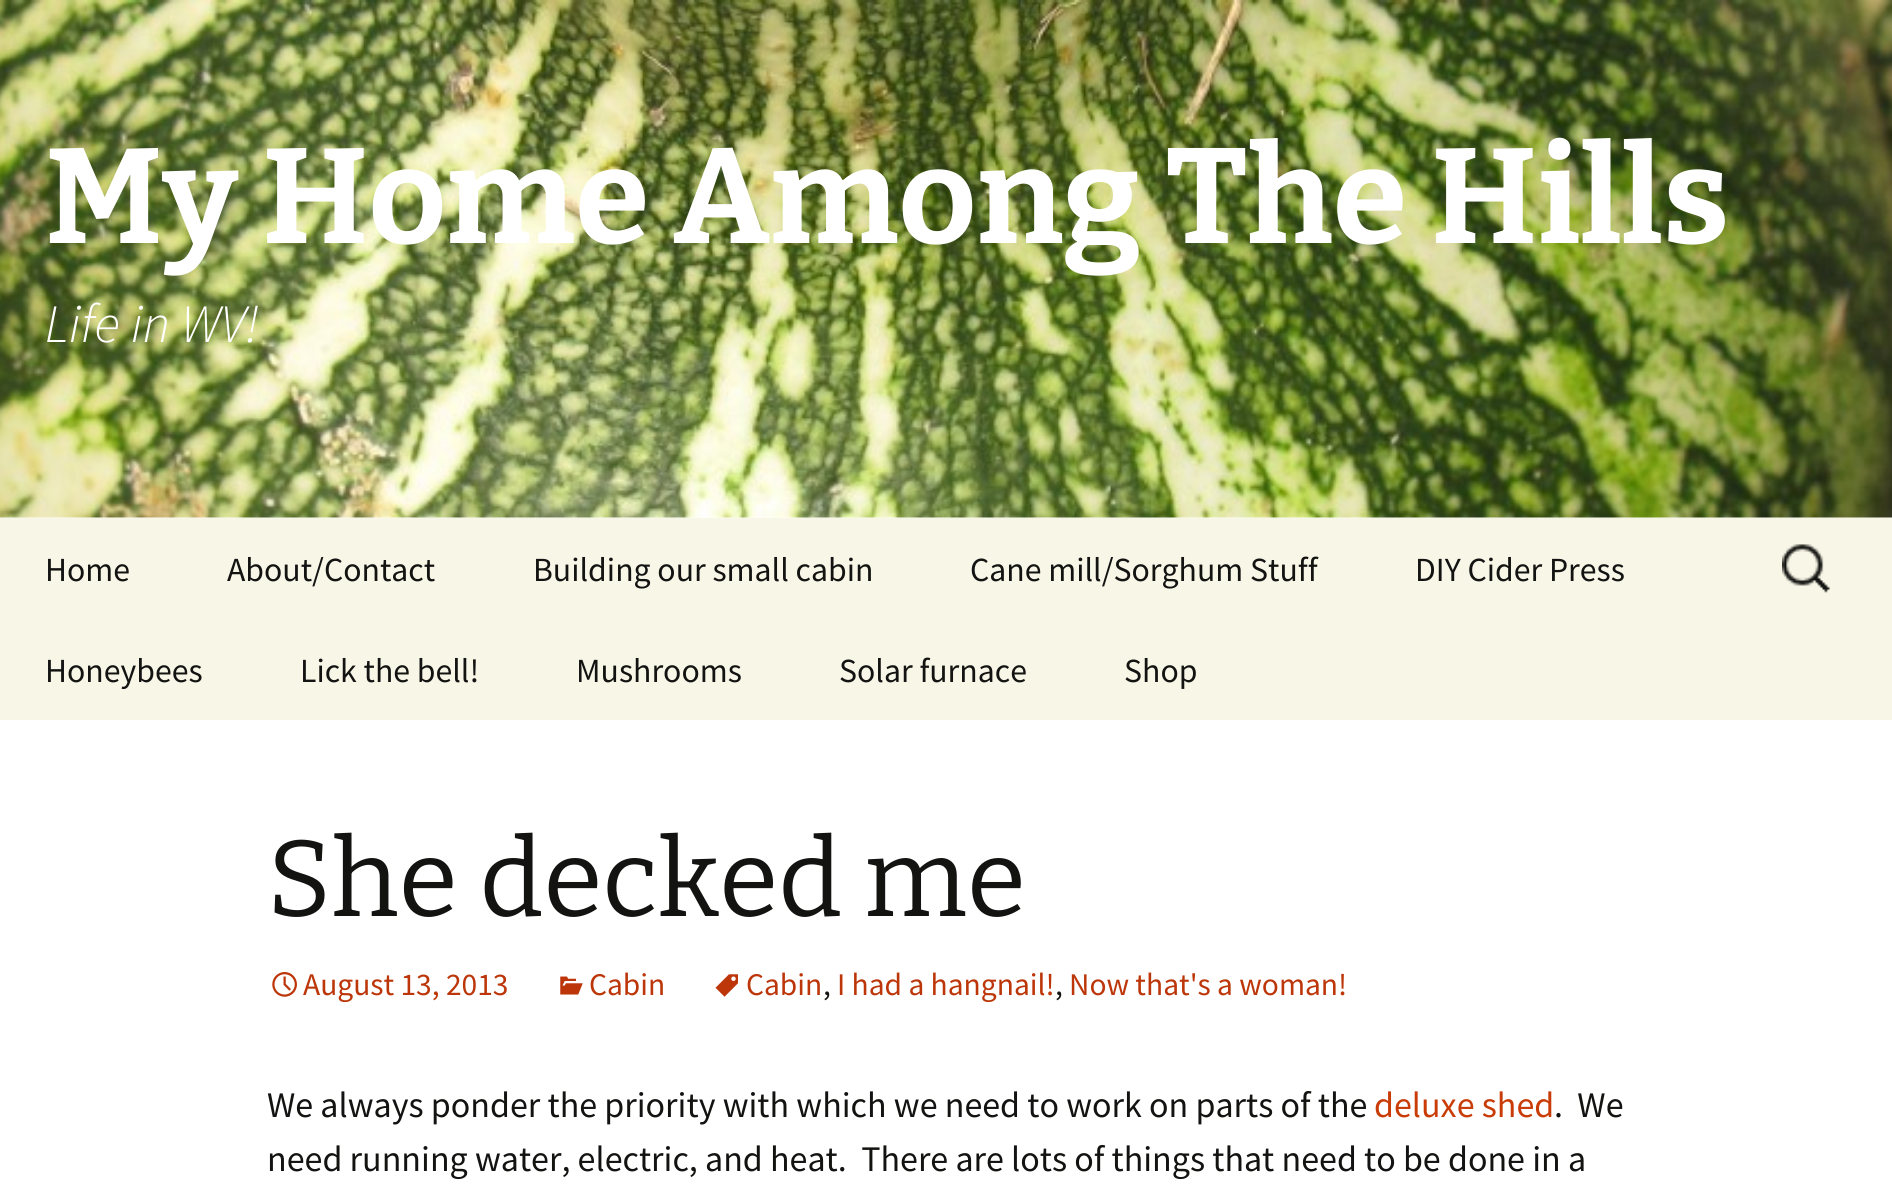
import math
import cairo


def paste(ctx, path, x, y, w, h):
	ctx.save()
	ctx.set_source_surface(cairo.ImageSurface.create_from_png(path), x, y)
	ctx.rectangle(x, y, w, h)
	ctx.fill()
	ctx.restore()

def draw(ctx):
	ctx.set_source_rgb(1, 1, 1)
	ctx.paint()
	paste(ctx, 'media/1.png', 0, 0, 1892, 518)
	ctx.select_font_face('Bitter Thin')
	ctx.set_font_size(135)
	ctx.set_source_rgb(1, 1, 1)
	ctx.move_to(45, 243)
	ctx.show_text('My Home Among The Hills')
	ctx.select_font_face('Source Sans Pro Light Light', cairo.FONT_SLANT_ITALIC)
	ctx.set_font_size(54)
	ctx.move_to(45, 342)
	ctx.show_text('Life in WV!')
	ctx.set_source_rgb(0.969, 0.961, 0.906)
	ctx.rectangle(0, 518, 1892, 202)
	ctx.fill()
	ctx.select_font_face('Source Sans Pro')
	ctx.set_font_size(33.75)
	ctx.set_source_rgb(0.078, 0.078, 0.071)
	for x, y, s in [
		(45, 581, 'Home'),
		(227, 581, 'About/Contact'),
		(533, 581, 'Building our small cabin'),
		(970, 581, 'Cane mill/Sorghum Stuff'),
		(1415, 581, 'DIY Cider Press'),
		(45, 682, 'Honeybees'),
		(300, 682, 'Lick the bell!'),
		(576, 682, 'Mushrooms'),
		(839, 682, 'Solar furnace'),
		(1124, 682, 'Shop'),
	]:
		ctx.move_to(x, y)
		ctx.show_text(s)
	paste(ctx, 'media/2.png', 1782, 544, 48, 49)
	ctx.select_font_face('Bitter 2 Thin')
	ctx.set_font_size(108)
	ctx.move_to(267, 916)
	ctx.show_text('She decked me')
	paste(ctx, 'media/3.png', 272, 972, 25, 25)
	ctx.select_font_face('Source Sans Pro')
	ctx.set_font_size(31.5)
	ctx.set_source_rgb(0.737, 0.212, 0.039)
	ctx.move_to(303, 995)
	ctx.show_text('August 13, 2013')
	paste(ctx, 'media/4.png', 560, 976, 23, 19)
	ctx.move_to(589, 995)
	ctx.show_text('Cabin')
	paste(ctx, 'media/5.png', 715, 974, 23, 23)
	ctx.move_to(746, 995)
	ctx.show_text('Cabin')
	ctx.set_source_rgb(0.078, 0.078, 0.071)
	ctx.move_to(823, 995)
	ctx.show_text(',')
	ctx.set_source_rgb(0.737, 0.212, 0.039)
	ctx.move_to(837, 995)
	ctx.show_text('I had a hangnail!')
	ctx.set_source_rgb(0.078, 0.078, 0.071)
	ctx.move_to(1055, 995)
	ctx.show_text(',')
	ctx.set_source_rgb(0.737, 0.212, 0.039)
	ctx.move_to(1069, 995)
	ctx.show_text('Now that\'s a woman!')
	ctx.set_font_size(36)
	ctx.set_source_rgb(0.078, 0.078, 0.071)
	ctx.move_to(267, 1117)
	ctx.show_text('We always ponder the priority with which we need to work on parts of the')
	ctx.set_source_rgb(0.792, 0.235, 0.031)
	ctx.move_to(1374, 1117)
	ctx.show_text('deluxe shed')
	ctx.set_source_rgb(0.078, 0.078, 0.071)
	ctx.move_to(1554, 1117)
	ctx.show_text('.  We')
	ctx.move_to(267, 1171)
	ctx.show_text('need running water, electric, and heat.  There are lots of things that need to be done in a')


surface = cairo.ImageSurface(cairo.FORMAT_RGB24, 1892, 1184)
ctx = cairo.Context(surface)
options = cairo.FontOptions()
options.set_hint_metrics(cairo.HINT_METRICS_OFF)
options.set_hint_style(cairo.HINT_STYLE_NONE)
ctx.set_font_options(options)
ctx.set_miter_limit(4)
draw(ctx)
surface.write_to_png('image.png')
